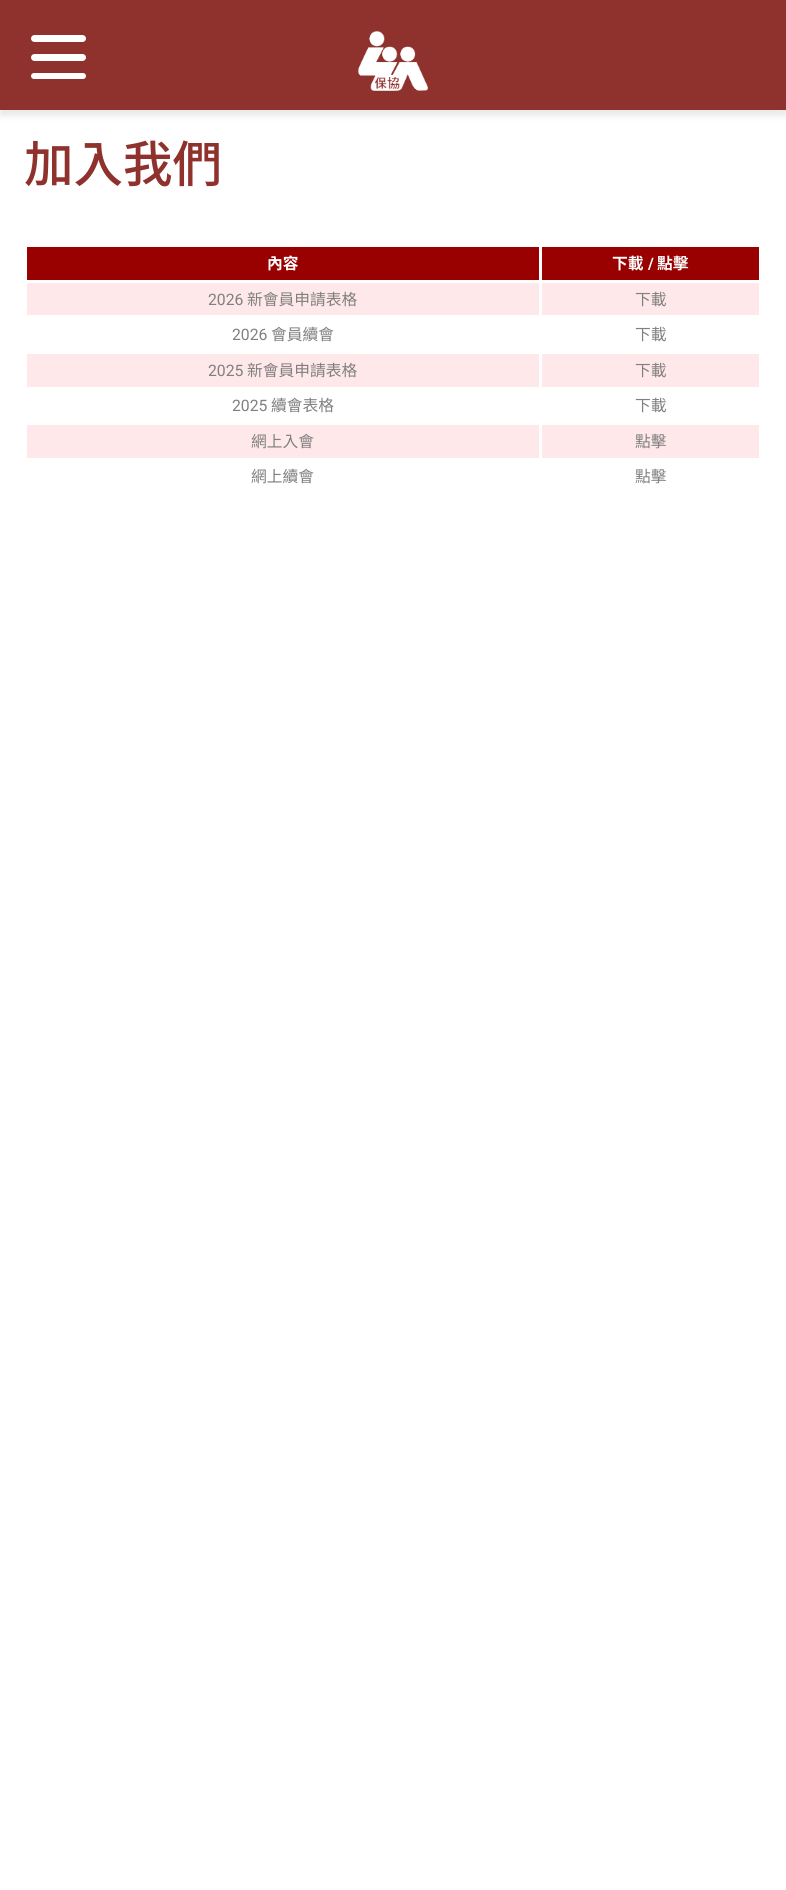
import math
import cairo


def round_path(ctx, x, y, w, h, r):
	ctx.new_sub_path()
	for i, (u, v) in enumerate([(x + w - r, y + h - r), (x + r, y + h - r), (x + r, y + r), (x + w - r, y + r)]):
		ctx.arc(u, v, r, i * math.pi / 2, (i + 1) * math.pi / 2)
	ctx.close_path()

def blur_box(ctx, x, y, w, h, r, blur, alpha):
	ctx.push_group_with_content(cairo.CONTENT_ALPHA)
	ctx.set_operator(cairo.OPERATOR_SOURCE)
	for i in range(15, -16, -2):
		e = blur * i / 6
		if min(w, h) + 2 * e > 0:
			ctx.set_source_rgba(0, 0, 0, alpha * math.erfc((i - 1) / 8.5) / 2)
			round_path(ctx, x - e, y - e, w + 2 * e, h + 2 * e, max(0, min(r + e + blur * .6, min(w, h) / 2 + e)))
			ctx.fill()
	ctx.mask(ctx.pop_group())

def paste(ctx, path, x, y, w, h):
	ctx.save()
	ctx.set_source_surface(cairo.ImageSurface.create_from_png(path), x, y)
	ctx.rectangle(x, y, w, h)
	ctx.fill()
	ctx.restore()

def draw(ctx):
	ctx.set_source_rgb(1, 1, 1)
	ctx.paint()
	ctx.set_source_rgb(0, 0, 0)
	blur_box(ctx, 0, 6, 786, 110, 0, 3, 0.09)
	ctx.set_source_rgb(0.561, 0.192, 0.176)
	ctx.rectangle(0, 0, 786, 110)
	ctx.fill()
	ctx.set_source_rgb(1, 1, 1)
	round_path(ctx, 31, 35, 55, 7, 3.5)
	ctx.fill()
	round_path(ctx, 31, 54, 55, 7, 3.5)
	ctx.fill()
	round_path(ctx, 31, 73, 55, 6, 3)
	ctx.fill()
	paste(ctx, 'media/1.png', 357, 31, 71, 60)
	ctx.select_font_face('Noto Sans TC Medium')
	ctx.set_font_size(49.5)
	ctx.set_source_rgb(0.561, 0.192, 0.176)
	ctx.move_to(24, 182)
	ctx.show_text('加入我們')
	ctx.set_source_rgb(0.6, 0, 0)
	ctx.rectangle(27, 247, 512, 33)
	ctx.fill()
	ctx.select_font_face('Noto Sans TC', cairo.FONT_SLANT_NORMAL, cairo.FONT_WEIGHT_BOLD)
	ctx.set_font_size(15.75)
	ctx.set_source_rgb(1, 1, 1)
	ctx.move_to(267, 269)
	ctx.show_text('內容')
	ctx.set_source_rgb(0.6, 0, 0)
	ctx.rectangle(542, 247, 217, 33)
	ctx.fill()
	ctx.set_source_rgb(1, 1, 1)
	ctx.move_to(612, 269)
	ctx.show_text('下載')
	ctx.select_font_face('Roboto', cairo.FONT_SLANT_NORMAL, cairo.FONT_WEIGHT_BOLD)
	ctx.move_to(648, 269)
	ctx.show_text('/')
	ctx.select_font_face('Noto Sans TC', cairo.FONT_SLANT_NORMAL, cairo.FONT_WEIGHT_BOLD)
	ctx.move_to(657, 269)
	ctx.show_text('點擊')
	ctx.set_source_rgb(1, 0.91, 0.914)
	ctx.rectangle(27, 283, 732, 32)
	ctx.fill()
	ctx.select_font_face('Roboto')
	ctx.set_source_rgb(0.502, 0.502, 0.502)
	ctx.move_to(208, 305)
	ctx.show_text('2026')
	ctx.select_font_face('Noto Sans TC')
	ctx.move_to(247, 305)
	ctx.show_text('新會員申請表格')
	ctx.set_source_rgb(1, 1, 1)
	ctx.rectangle(539, 280, 3, 38)
	ctx.fill()
	ctx.set_source_rgb(0.502, 0.502, 0.502)
	ctx.move_to(635, 305)
	ctx.show_text('下載')
	ctx.select_font_face('Roboto')
	ctx.move_to(232, 340)
	ctx.show_text('2026')
	ctx.select_font_face('Noto Sans TC')
	ctx.move_to(271, 340)
	ctx.show_text('會員續會')
	ctx.move_to(635, 340)
	ctx.show_text('下載')
	ctx.set_source_rgb(1, 0.91, 0.914)
	ctx.rectangle(27, 354, 732, 33)
	ctx.fill()
	ctx.select_font_face('Roboto')
	ctx.set_source_rgb(0.502, 0.502, 0.502)
	ctx.move_to(208, 376)
	ctx.show_text('2025')
	ctx.select_font_face('Noto Sans TC')
	ctx.move_to(247, 376)
	ctx.show_text('新會員申請表格')
	ctx.set_source_rgb(1, 1, 1)
	ctx.rectangle(539, 351, 3, 39)
	ctx.fill()
	ctx.set_source_rgb(0.502, 0.502, 0.502)
	ctx.move_to(635, 376)
	ctx.show_text('下載')
	ctx.select_font_face('Roboto')
	ctx.move_to(232, 411)
	ctx.show_text('2025')
	ctx.select_font_face('Noto Sans TC')
	ctx.move_to(271, 411)
	ctx.show_text('續會表格')
	ctx.move_to(635, 411)
	ctx.show_text('下載')
	ctx.set_source_rgb(1, 0.91, 0.914)
	ctx.rectangle(27, 425, 732, 33)
	ctx.fill()
	ctx.set_source_rgb(0.502, 0.502, 0.502)
	ctx.move_to(251, 447)
	ctx.show_text('網上入會')
	ctx.set_source_rgb(1, 1, 1)
	ctx.rectangle(539, 422, 3, 39)
	ctx.fill()
	ctx.set_source_rgb(0.502, 0.502, 0.502)
	for x, y, s in [
		(635, 447, '點擊'),
		(251, 482, '網上續會'),
		(635, 482, '點擊'),
	]:
		ctx.move_to(x, y)
		ctx.show_text(s)


surface = cairo.ImageSurface(cairo.FORMAT_RGB24, 786, 1890)
ctx = cairo.Context(surface)
options = cairo.FontOptions()
options.set_hint_metrics(cairo.HINT_METRICS_OFF)
options.set_hint_style(cairo.HINT_STYLE_NONE)
ctx.set_font_options(options)
ctx.set_miter_limit(4)
draw(ctx)
surface.write_to_png('image.png')
